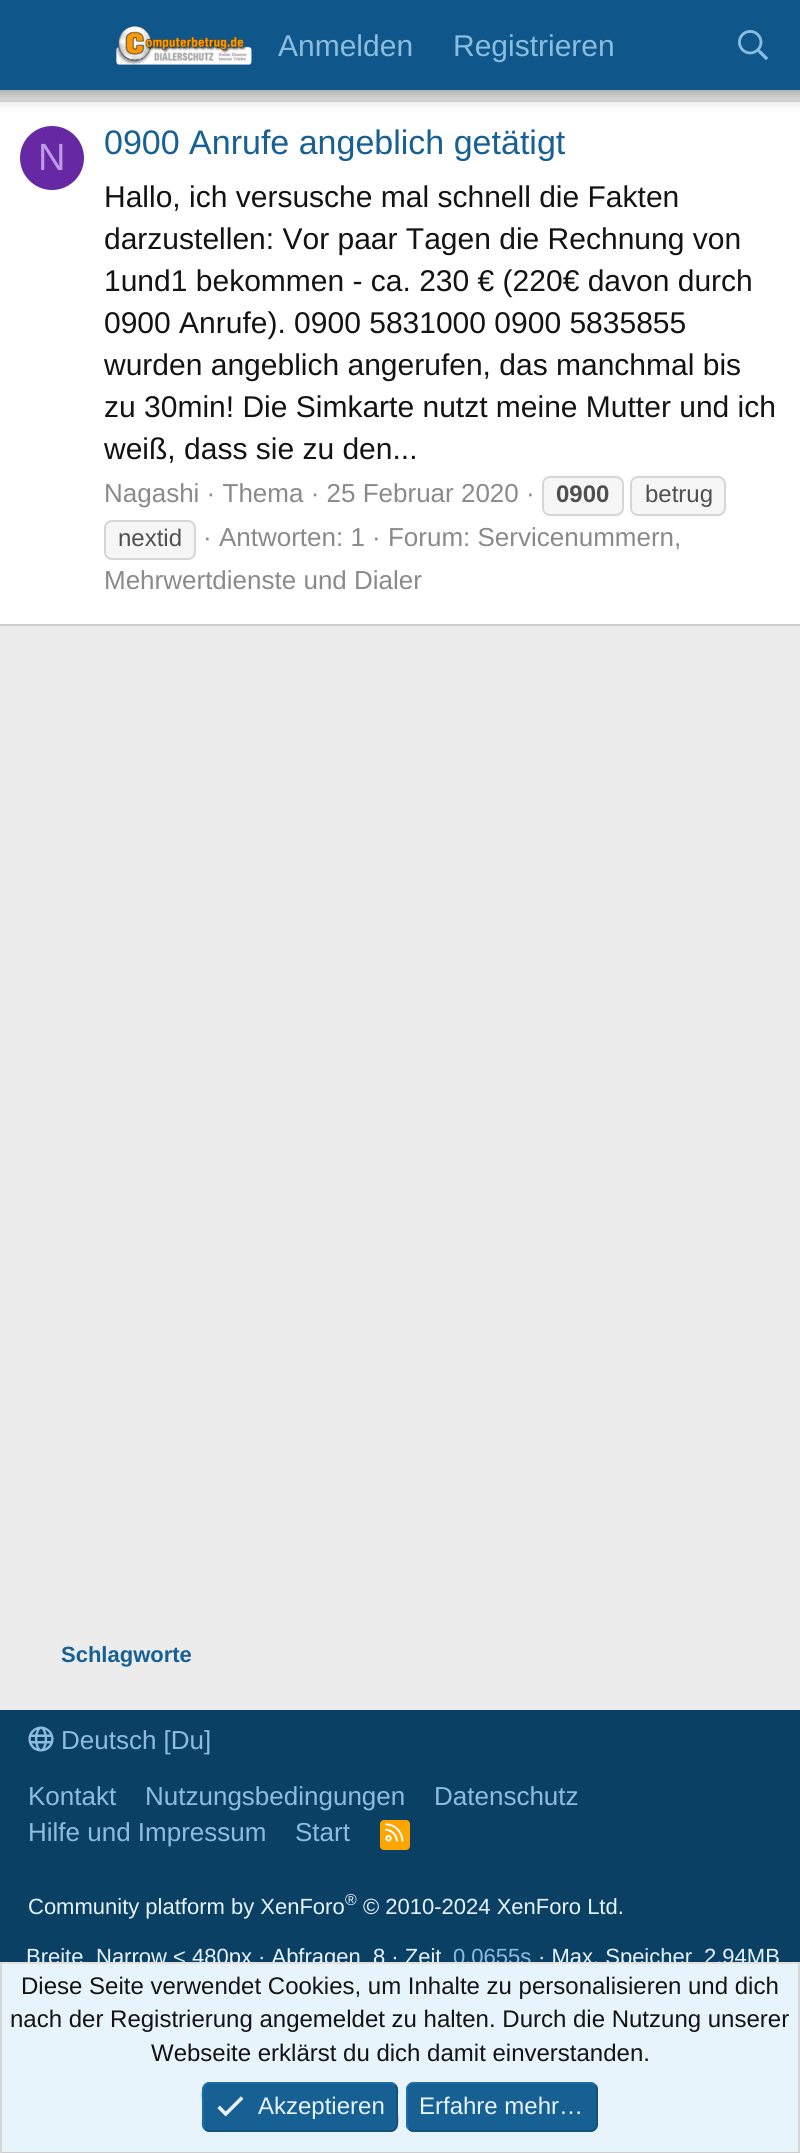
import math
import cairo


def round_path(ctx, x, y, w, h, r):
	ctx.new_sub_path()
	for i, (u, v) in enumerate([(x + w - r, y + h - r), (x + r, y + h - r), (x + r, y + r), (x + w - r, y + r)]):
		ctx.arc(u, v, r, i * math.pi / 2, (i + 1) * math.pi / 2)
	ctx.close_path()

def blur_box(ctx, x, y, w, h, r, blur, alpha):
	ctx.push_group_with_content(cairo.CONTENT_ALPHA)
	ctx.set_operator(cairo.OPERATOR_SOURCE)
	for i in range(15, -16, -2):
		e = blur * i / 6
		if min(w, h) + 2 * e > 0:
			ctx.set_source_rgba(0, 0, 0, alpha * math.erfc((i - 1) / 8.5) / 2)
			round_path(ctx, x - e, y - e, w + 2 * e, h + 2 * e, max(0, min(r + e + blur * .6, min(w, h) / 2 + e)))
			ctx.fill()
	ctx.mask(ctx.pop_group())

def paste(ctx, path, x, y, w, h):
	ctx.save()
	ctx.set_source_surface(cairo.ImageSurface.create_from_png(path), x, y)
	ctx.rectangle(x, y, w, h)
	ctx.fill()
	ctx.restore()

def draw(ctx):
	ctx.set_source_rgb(0.922, 0.922, 0.922)
	ctx.paint()
	ctx.set_source_rgb(1, 1, 1)
	ctx.rectangle(0, 102, 800, 522)
	ctx.fill()
	ctx.set_source_rgb(0.878, 0.878, 0.878)
	ctx.rectangle(0, 100, 800, 2)
	ctx.fill()
	ctx.set_source_rgb(0, 0, 0)
	blur_box(ctx, -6, -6, 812, 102, 0, 8, 0.3)
	ctx.set_source_rgb(0.059, 0.341, 0.541)
	ctx.rectangle(0, 0, 800, 90)
	ctx.fill()
	paste(ctx, 'media/1.png', 116, 26, 136, 39)
	ctx.select_font_face('Liberation Sans')
	ctx.set_font_size(30)
	ctx.set_source_rgb(0.545, 0.741, 0.878)
	ctx.move_to(278, 56)
	ctx.show_text('Anmelden')
	ctx.move_to(453, 56)
	ctx.show_text('Registrieren')
	paste(ctx, 'media/2.png', 738, 30, 30, 30)
	ctx.set_source_rgb(0.8, 0.8, 0.8)
	ctx.rectangle(0, 624, 800, 2)
	ctx.fill()
	ctx.set_source_rgb(0.4, 0.161, 0.639)
	ctx.arc(52, 158, 32, 0, 2 * math.pi)
	ctx.fill()
	ctx.set_font_size(38)
	ctx.set_source_rgb(0.749, 0.6, 0.902)
	ctx.move_to(38, 170)
	ctx.show_text('N')
	ctx.set_font_size(34)
	ctx.set_source_rgb(0.09, 0.376, 0.576)
	ctx.move_to(104, 154)
	ctx.show_text('0900 Anrufe angeblich getätigt')
	ctx.set_font_size(30)
	ctx.set_source_rgb(0.078, 0.078, 0.078)
	for x, y, s in [
		(104, 207, 'Hallo, ich versusche mal schnell die Fakten'),
		(104, 249, 'darzustellen: Vor paar Tagen die Rechnung von'),
		(104, 291, '1und1 bekommen - ca. 230 € (220€ davon durch'),
		(104, 333, '0900 Anrufe). 0900 5831000 0900 5835855'),
		(104, 375, 'wurden angeblich angerufen, das manchmal bis'),
		(104, 417, 'zu 30min! Die Simkarte nutzt meine Mutter und ich'),
		(104, 459, 'weiß, dass sie zu den...'),
	]:
		ctx.move_to(x, y)
		ctx.show_text(s)
	ctx.set_font_size(26)
	ctx.set_source_rgb(0.541, 0.541, 0.541)
	ctx.move_to(104, 502)
	ctx.show_text('Nagashi · Thema · 25 Februar 2020 ·')
	ctx.set_source_rgb(0.961, 0.961, 0.961)
	round_path(ctx, 543, 477, 80, 38, 7)
	ctx.fill_preserve()
	ctx.set_source_rgb(0.839, 0.839, 0.839)
	ctx.stroke()
	ctx.select_font_face('Liberation Sans', cairo.FONT_SLANT_NORMAL, cairo.FONT_WEIGHT_BOLD)
	ctx.set_font_size(24)
	ctx.set_source_rgb(0.31, 0.31, 0.31)
	ctx.move_to(556, 502)
	ctx.show_text('0900')
	ctx.set_source_rgb(0.961, 0.961, 0.961)
	round_path(ctx, 631, 477, 94, 38, 7)
	ctx.fill_preserve()
	ctx.set_source_rgb(0.839, 0.839, 0.839)
	ctx.stroke()
	ctx.select_font_face('Liberation Sans')
	ctx.set_source_rgb(0.31, 0.31, 0.31)
	ctx.move_to(645, 502)
	ctx.show_text('betrug')
	ctx.set_source_rgb(0.961, 0.961, 0.961)
	round_path(ctx, 105, 521, 90, 38, 7)
	ctx.fill_preserve()
	ctx.set_source_rgb(0.839, 0.839, 0.839)
	ctx.stroke()
	ctx.set_source_rgb(0.31, 0.31, 0.31)
	ctx.move_to(118, 546)
	ctx.show_text('nextid')
	ctx.set_font_size(26)
	ctx.set_source_rgb(0.541, 0.541, 0.541)
	ctx.move_to(203, 546)
	ctx.show_text('· Antworten: 1 · Forum: Servicenummern,')
	ctx.move_to(104, 589)
	ctx.show_text('Mehrwertdienste und Dialer')
	ctx.select_font_face('Liberation Sans', cairo.FONT_SLANT_NORMAL, cairo.FONT_WEIGHT_BOLD)
	ctx.set_font_size(22)
	ctx.set_source_rgb(0.09, 0.376, 0.576)
	ctx.move_to(61, 1662)
	ctx.show_text('Schlagworte')
	ctx.set_source_rgb(0.043, 0.251, 0.396)
	ctx.rectangle(0, 1710, 800, 252)
	ctx.fill()
	paste(ctx, 'media/3.png', 28, 1726, 26, 26)
	ctx.select_font_face('Liberation Sans')
	ctx.set_font_size(26)
	ctx.set_source_rgb(0.545, 0.741, 0.878)
	for x, y, s in [
		(61, 1749, 'Deutsch [Du]'),
		(28, 1805, 'Kontakt'),
		(145, 1805, 'Nutzungsbedingungen'),
		(434, 1805, 'Datenschutz'),
		(28, 1841, 'Hilfe und Impressum'),
		(295, 1841, 'Start'),
	]:
		ctx.move_to(x, y)
		ctx.show_text(s)
	ctx.set_source_rgb(1, 0.647, 0)
	round_path(ctx, 380, 1820, 30, 30, 4)
	ctx.fill()
	paste(ctx, 'media/4.png', 385, 1823, 19, 19)
	ctx.set_font_size(22)
	ctx.set_source_rgb(0.91, 0.957, 0.988)
	ctx.move_to(28, 1914)
	ctx.show_text('Community platform by XenForo')
	ctx.set_font_size(16)
	ctx.move_to(345, 1905)
	ctx.show_text('®')
	ctx.set_font_size(22)
	for x, y, s in [
		(363, 1914, '© 2010-2024 XenForo Ltd.'),
		(26, 1964, 'Breite'),
		(96, 1964, 'Narrow < 480px · Abfragen'),
		(373, 1964, '8 · Zeit'),
	]:
		ctx.move_to(x, y)
		ctx.show_text(s)
	ctx.set_source_rgb(0.545, 0.741, 0.878)
	ctx.move_to(453, 1964)
	ctx.show_text('0.0655s')
	ctx.set_source_rgb(0.91, 0.957, 0.988)
	ctx.move_to(538, 1964)
	ctx.show_text('· Max. Speicher')
	ctx.move_to(704, 1964)
	ctx.show_text('2.94MB')
	ctx.rectangle(2, 1964, 796, 188)
	ctx.fill()
	ctx.set_source_rgb(0.878, 0.878, 0.878)
	ctx.rectangle(0, 1962, 800, 2)
	ctx.fill()
	ctx.set_source_rgb(0.839, 0.839, 0.839)
	ctx.rectangle(798, 1962, 2, 191)
	ctx.fill()
	ctx.set_source_rgb(0.8, 0.8, 0.8)
	ctx.rectangle(0, 2152, 800, 1)
	ctx.fill()
	ctx.set_source_rgb(0.839, 0.839, 0.839)
	ctx.rectangle(0, 1962, 2, 191)
	ctx.fill()
	ctx.set_font_size(24)
	ctx.set_source_rgb(0.078, 0.078, 0.078)
	for x, y, s in [
		(21, 1994, 'Diese Seite verwendet Cookies, um Inhalte zu personalisieren und dich'),
		(10, 2027, 'nach der Registrierung angemeldet zu halten. Durch die Nutzung unserer'),
		(151, 2061, 'Webseite erklärst du dich damit einverstanden.'),
	]:
		ctx.move_to(x, y)
		ctx.show_text(s)
	ctx.set_source_rgb(0.09, 0.376, 0.576)
	round_path(ctx, 202, 2082, 196, 50, 8)
	ctx.fill()
	ctx.new_path()
	ctx.move_to(395, 2085)
	ctx.curve_to(398, 2088, 397, 2092, 397, 2095.5)
	ctx.line_to(397, 2112.5)
	ctx.curve_to(397, 2118, 399.5, 2131, 390, 2131)
	ctx.line_to(210, 2131)
	ctx.curve_to(208, 2131, 206.5, 2130.5, 205, 2129)
	ctx.set_source_rgb(0.078, 0.322, 0.49)
	ctx.stroke()
	ctx.new_path()
	ctx.move_to(205, 2129)
	ctx.curve_to(202, 2126, 203, 2122, 203, 2118.5)
	ctx.line_to(203, 2101.5)
	ctx.curve_to(203, 2096, 200.5, 2083, 210, 2083)
	ctx.line_to(390, 2083)
	ctx.curve_to(392, 2083, 393.5, 2083.5, 395, 2085)
	ctx.set_source_rgb(0.102, 0.431, 0.663)
	ctx.stroke()
	paste(ctx, 'media/5.png', 217, 2096, 27, 21)
	ctx.set_source_rgb(0.91, 0.957, 0.988)
	ctx.move_to(258, 2114)
	ctx.show_text('Akzeptieren')
	ctx.set_source_rgb(0.09, 0.376, 0.576)
	round_path(ctx, 406, 2082, 192, 50, 8)
	ctx.fill()
	ctx.new_path()
	ctx.move_to(595, 2085)
	ctx.curve_to(596.5, 2086.5, 597, 2088, 597, 2090)
	ctx.line_to(597, 2124)
	ctx.curve_to(597, 2126, 596.5, 2127.5, 595, 2129)
	ctx.curve_to(593.5, 2130.5, 592, 2131, 590, 2131)
	ctx.line_to(414, 2131)
	ctx.curve_to(412, 2131, 410.5, 2130.5, 409, 2129)
	ctx.set_source_rgb(0.078, 0.322, 0.49)
	ctx.stroke()
	ctx.new_path()
	ctx.move_to(409, 2129)
	ctx.curve_to(407.5, 2127.5, 407, 2126, 407, 2124)
	ctx.line_to(407, 2090)
	ctx.curve_to(407, 2088, 407.5, 2086.5, 409, 2085)
	ctx.curve_to(410.5, 2083.5, 412, 2083, 414, 2083)
	ctx.line_to(590, 2083)
	ctx.curve_to(592, 2083, 593.5, 2083.5, 595, 2085)
	ctx.set_source_rgb(0.102, 0.431, 0.663)
	ctx.stroke()
	ctx.set_source_rgb(0.91, 0.957, 0.988)
	ctx.move_to(419, 2114)
	ctx.show_text('Erfahre mehr…')


surface = cairo.ImageSurface(cairo.FORMAT_RGB24, 800, 2153)
ctx = cairo.Context(surface)
options = cairo.FontOptions()
options.set_hint_metrics(cairo.HINT_METRICS_OFF)
options.set_hint_style(cairo.HINT_STYLE_NONE)
ctx.set_font_options(options)
ctx.set_miter_limit(4)
draw(ctx)
surface.write_to_png('image.png')
